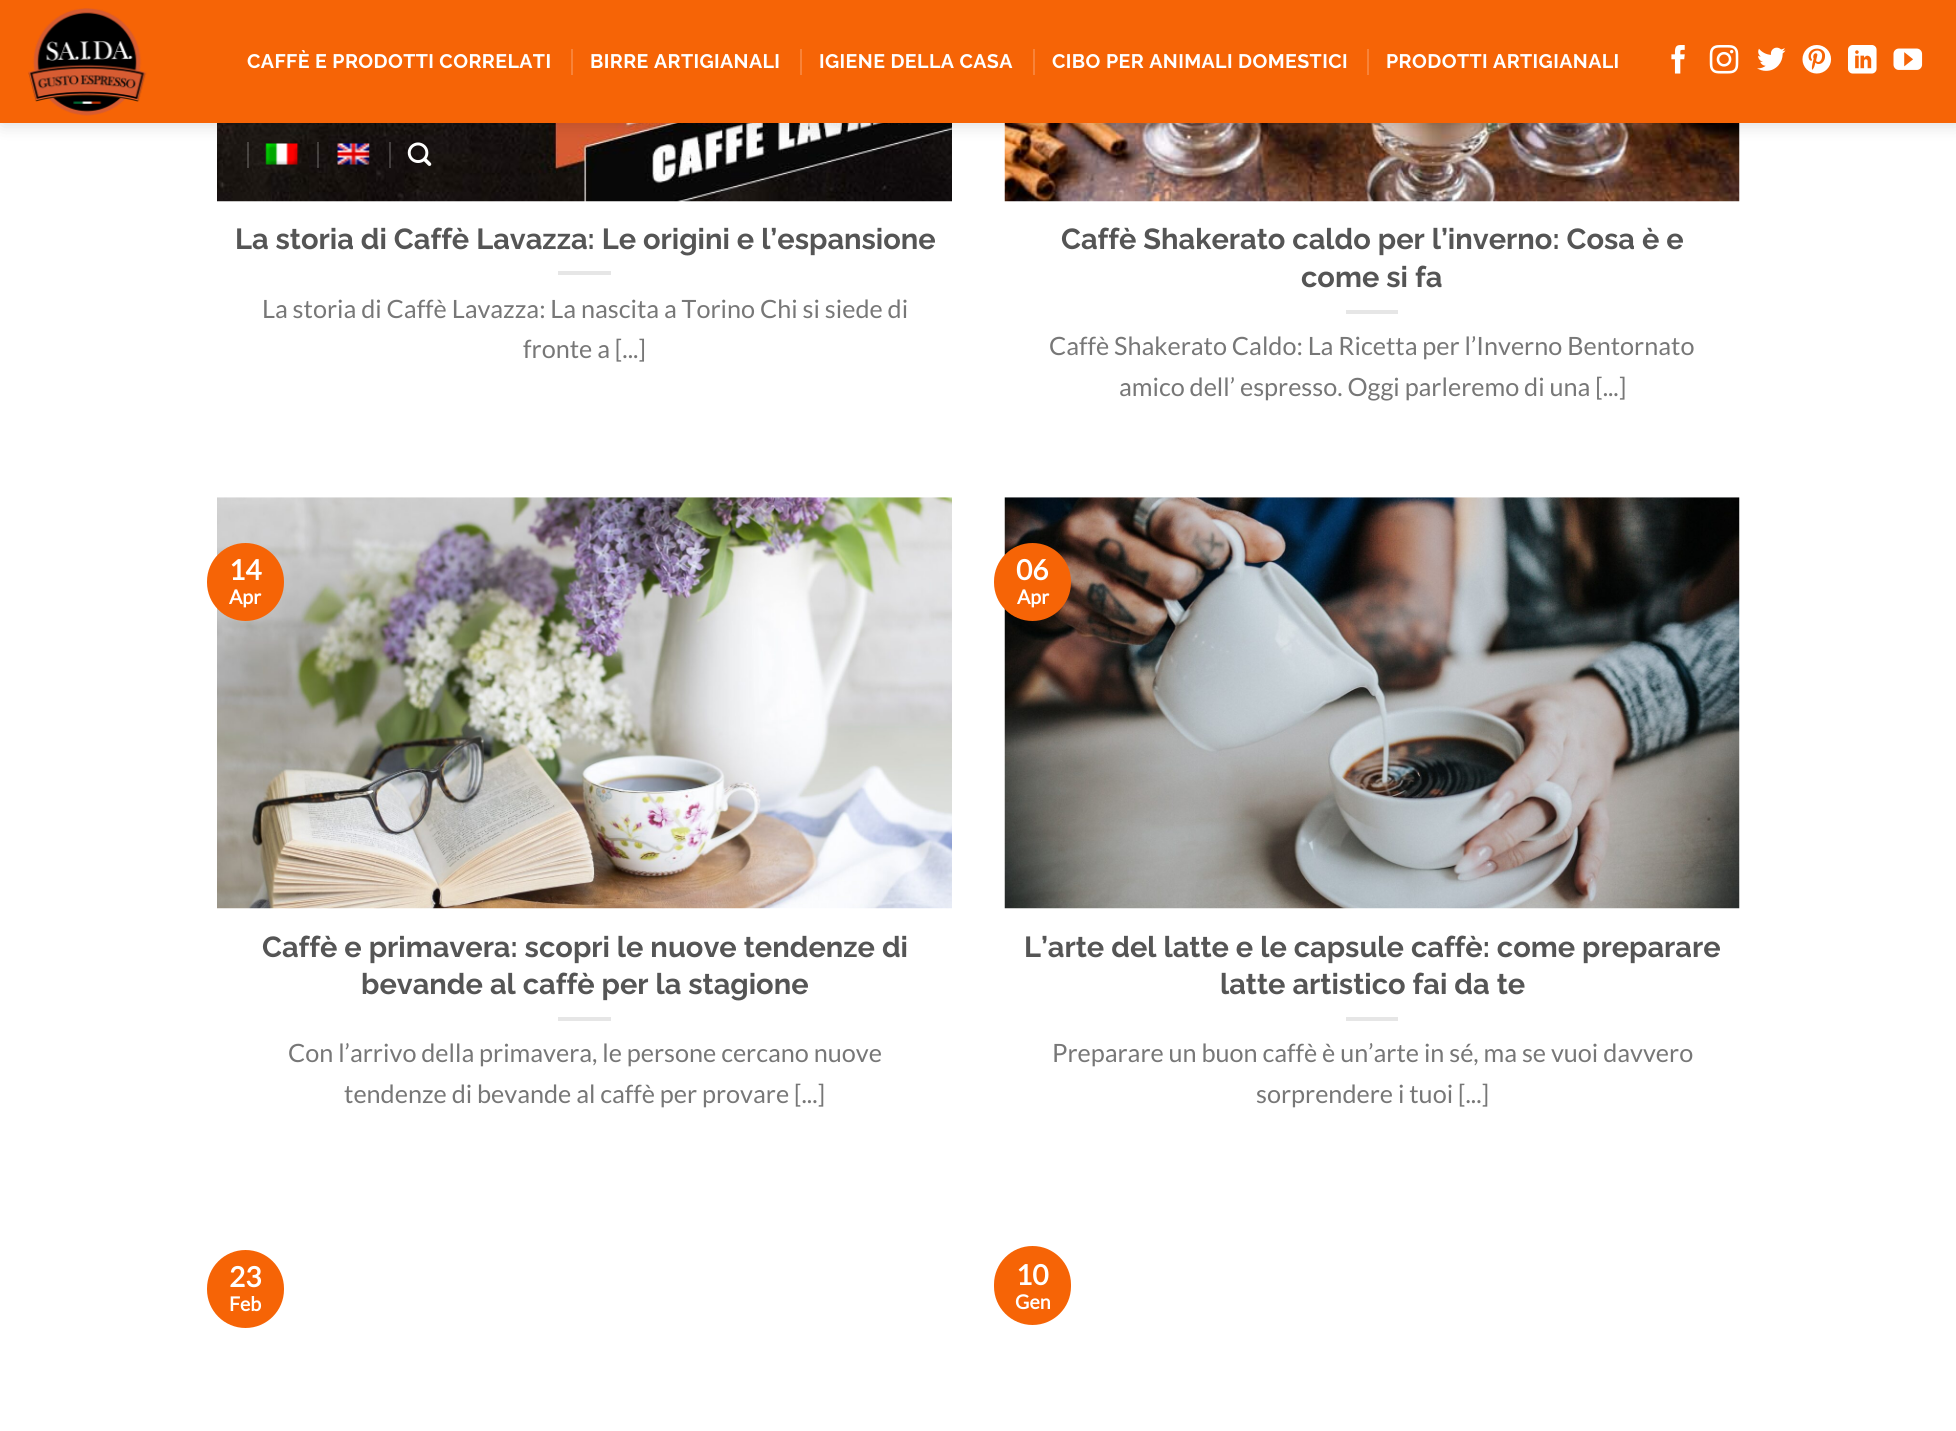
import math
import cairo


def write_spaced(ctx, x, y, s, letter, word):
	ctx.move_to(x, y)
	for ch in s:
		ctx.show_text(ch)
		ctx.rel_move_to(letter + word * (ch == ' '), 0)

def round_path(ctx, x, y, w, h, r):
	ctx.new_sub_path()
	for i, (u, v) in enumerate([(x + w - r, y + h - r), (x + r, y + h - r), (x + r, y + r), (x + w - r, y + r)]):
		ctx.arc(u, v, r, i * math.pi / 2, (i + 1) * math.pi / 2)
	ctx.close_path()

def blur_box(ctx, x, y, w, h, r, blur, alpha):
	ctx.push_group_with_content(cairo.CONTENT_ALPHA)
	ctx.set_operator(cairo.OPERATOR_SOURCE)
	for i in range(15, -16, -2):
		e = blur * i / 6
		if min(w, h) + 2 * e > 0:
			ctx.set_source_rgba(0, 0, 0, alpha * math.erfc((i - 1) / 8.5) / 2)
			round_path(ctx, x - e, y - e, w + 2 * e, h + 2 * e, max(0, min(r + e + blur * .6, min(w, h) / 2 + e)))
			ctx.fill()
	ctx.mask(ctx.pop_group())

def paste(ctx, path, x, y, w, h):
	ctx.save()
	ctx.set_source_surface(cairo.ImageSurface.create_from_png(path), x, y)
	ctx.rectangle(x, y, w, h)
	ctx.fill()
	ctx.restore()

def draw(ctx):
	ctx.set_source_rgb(1, 1, 1)
	ctx.paint()
	paste(ctx, 'media/11.png', 217, 123, 735, 79)
	paste(ctx, 'media/12.png', 1004, 123, 736, 79)
	ctx.set_source_rgb(0, 0, 0)
	blur_box(ctx, 2, 2, 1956, 122, 0, 9, 0.15)
	ctx.set_source_rgb(0.961, 0.392, 0.027)
	ctx.rectangle(0, 0, 1956, 123)
	ctx.fill()
	paste(ctx, 'media/1.png', 28, 8, 119, 108)
	ctx.select_font_face('Raleway', cairo.FONT_SLANT_NORMAL, cairo.FONT_WEIGHT_BOLD)
	ctx.set_font_size(19.6)
	ctx.set_source_rgb(1, 1, 1)
	write_spaced(ctx, 247, 68, 'CAFFÈ E PRODOTTI CORRELATI', 0.4, 0)
	ctx.set_source_rgb(0.969, 0.514, 0.224)
	ctx.rectangle(571, 49, 2, 26)
	ctx.fill()
	ctx.set_source_rgb(1, 1, 1)
	write_spaced(ctx, 590, 68, 'BIRRE ARTIGIANALI', 0.4, 0)
	ctx.set_source_rgb(0.969, 0.514, 0.224)
	ctx.rectangle(800, 49, 2, 26)
	ctx.fill()
	ctx.set_source_rgb(1, 1, 1)
	write_spaced(ctx, 819, 68, 'IGIENE DELLA CASA', 0.4, 0)
	ctx.set_source_rgb(0.969, 0.514, 0.224)
	ctx.rectangle(1033, 49, 2, 26)
	ctx.fill()
	ctx.set_source_rgb(1, 1, 1)
	write_spaced(ctx, 1052, 68, 'CIBO PER ANIMALI DOMESTICI', 0.4, 0)
	ctx.set_source_rgb(0.969, 0.514, 0.224)
	ctx.rectangle(1367, 49, 2, 26)
	ctx.fill()
	ctx.set_source_rgb(1, 1, 1)
	write_spaced(ctx, 1386, 68, 'PRODOTTI ARTIGIANALI', 0.4, 0)
	ctx.set_source_rgba(1, 1, 1, 0.2)
	ctx.rectangle(247, 142, 2, 26)
	ctx.fill()
	paste(ctx, 'media/2.png', 265, 143, 34, 22)
	ctx.rectangle(317, 142, 2, 26)
	ctx.fill()
	paste(ctx, 'media/3.png', 337, 143, 33, 22)
	ctx.rectangle(389, 142, 2, 26)
	ctx.fill()
	paste(ctx, 'media/4.png', 407, 142, 25, 24)
	paste(ctx, 'media/5.png', 1671, 45, 14, 29)
	paste(ctx, 'media/6.png', 1709, 45, 30, 29)
	paste(ctx, 'media/7.png', 1757, 47, 29, 24)
	paste(ctx, 'media/8.png', 1802, 45, 30, 29)
	paste(ctx, 'media/9.png', 1848, 45, 29, 29)
	paste(ctx, 'media/10.png', 1893, 48, 30, 22)
	ctx.set_font_size(29)
	ctx.set_source_rgb(0.333, 0.333, 0.333)
	ctx.move_to(235, 249)
	ctx.show_text('La storia di Caffè Lavazza: Le origini e l’espansione')
	ctx.set_source_rgb(0.902, 0.902, 0.902)
	ctx.rectangle(558, 271, 53, 4)
	ctx.fill()
	ctx.select_font_face('Lato')
	ctx.set_font_size(25.2)
	ctx.set_source_rgb(0.467, 0.467, 0.467)
	ctx.move_to(262, 318)
	ctx.show_text('La storia di Caffè Lavazza: La nascita a Torino Chi si siede di')
	ctx.move_to(523, 358)
	ctx.show_text('fronte a [...]')
	ctx.select_font_face('Raleway', cairo.FONT_SLANT_NORMAL, cairo.FONT_WEIGHT_BOLD)
	ctx.set_font_size(29)
	ctx.set_source_rgb(0.333, 0.333, 0.333)
	ctx.move_to(1061, 249)
	ctx.show_text('Caffè Shakerato caldo per l’inverno: Cosa è e')
	ctx.move_to(1301, 287)
	ctx.show_text('come si fa')
	ctx.set_source_rgb(0.902, 0.902, 0.902)
	ctx.rectangle(1346, 310, 52, 4)
	ctx.fill()
	ctx.select_font_face('Lato')
	ctx.set_font_size(25.2)
	ctx.set_source_rgb(0.467, 0.467, 0.467)
	ctx.move_to(1049, 355)
	ctx.show_text('Caffè Shakerato Caldo: La Ricetta per l’Inverno Bentornato')
	ctx.move_to(1119, 396)
	ctx.show_text('amico dell’ espresso. Oggi parleremo di una [...]')
	paste(ctx, 'media/13.png', 217, 497, 735, 412)
	ctx.set_source_rgb(0.961, 0.392, 0.027)
	round_path(ctx, 207, 543, 77, 78, 38.5)
	ctx.fill()
	ctx.select_font_face('Lato', cairo.FONT_SLANT_NORMAL, cairo.FONT_WEIGHT_BOLD)
	ctx.set_font_size(28)
	ctx.set_source_rgb(1, 1, 1)
	ctx.move_to(229, 580)
	ctx.show_text('14')
	ctx.set_font_size(19.6)
	ctx.move_to(229, 604)
	ctx.show_text('Apr')
	ctx.select_font_face('Raleway', cairo.FONT_SLANT_NORMAL, cairo.FONT_WEIGHT_BOLD)
	ctx.set_font_size(29)
	ctx.set_source_rgb(0.333, 0.333, 0.333)
	ctx.move_to(262, 957)
	ctx.show_text('Caffè e primavera: scopri le nuove tendenze di')
	ctx.move_to(361, 994)
	ctx.show_text('bevande al caffè per la stagione')
	ctx.set_source_rgb(0.902, 0.902, 0.902)
	ctx.rectangle(558, 1017, 53, 4)
	ctx.fill()
	ctx.select_font_face('Lato')
	ctx.set_font_size(25.2)
	ctx.set_source_rgb(0.467, 0.467, 0.467)
	ctx.move_to(288, 1062)
	ctx.show_text('Con l’arrivo della primavera, le persone cercano nuove')
	ctx.move_to(344, 1103)
	ctx.show_text('tendenze di bevande al caffè per provare [...]')
	paste(ctx, 'media/14.png', 1004, 497, 736, 412)
	ctx.set_source_rgb(0.961, 0.392, 0.027)
	round_path(ctx, 994, 543, 77, 78, 38.5)
	ctx.fill()
	ctx.select_font_face('Lato', cairo.FONT_SLANT_NORMAL, cairo.FONT_WEIGHT_BOLD)
	ctx.set_font_size(28)
	ctx.set_source_rgb(1, 1, 1)
	ctx.move_to(1016, 580)
	ctx.show_text('06')
	ctx.set_font_size(19.6)
	ctx.move_to(1017, 604)
	ctx.show_text('Apr')
	ctx.select_font_face('Raleway', cairo.FONT_SLANT_NORMAL, cairo.FONT_WEIGHT_BOLD)
	ctx.set_font_size(29)
	ctx.set_source_rgb(0.333, 0.333, 0.333)
	ctx.move_to(1024, 957)
	ctx.show_text('L’arte del latte e le capsule caffè: come preparare')
	ctx.move_to(1220, 994)
	ctx.show_text('latte artistico fai da te')
	ctx.set_source_rgb(0.902, 0.902, 0.902)
	ctx.rectangle(1346, 1017, 52, 4)
	ctx.fill()
	ctx.select_font_face('Lato')
	ctx.set_font_size(25.2)
	ctx.set_source_rgb(0.467, 0.467, 0.467)
	ctx.move_to(1052, 1062)
	ctx.show_text('Preparare un buon caffè è un’arte in sé, ma se vuoi davvero')
	ctx.move_to(1256, 1103)
	ctx.show_text('sorprendere i tuoi [...]')
	ctx.set_source_rgb(0.961, 0.392, 0.027)
	round_path(ctx, 207, 1250, 77, 78, 38.5)
	ctx.fill()
	ctx.select_font_face('Lato', cairo.FONT_SLANT_NORMAL, cairo.FONT_WEIGHT_BOLD)
	ctx.set_font_size(28)
	ctx.set_source_rgb(1, 1, 1)
	ctx.move_to(229, 1287)
	ctx.show_text('23')
	ctx.set_font_size(19.6)
	ctx.move_to(229, 1311)
	ctx.show_text('Feb')
	ctx.set_source_rgb(0.961, 0.392, 0.027)
	round_path(ctx, 994, 1246, 77, 79, 38.5)
	ctx.fill()
	ctx.set_font_size(28)
	ctx.set_source_rgb(1, 1, 1)
	ctx.move_to(1016, 1285)
	ctx.show_text('10')
	ctx.set_font_size(19.6)
	ctx.move_to(1015, 1309)
	ctx.show_text('Gen')


surface = cairo.ImageSurface(cairo.FORMAT_RGB24, 1956, 1431)
ctx = cairo.Context(surface)
options = cairo.FontOptions()
options.set_hint_metrics(cairo.HINT_METRICS_OFF)
options.set_hint_style(cairo.HINT_STYLE_NONE)
ctx.set_font_options(options)
ctx.set_miter_limit(4)
draw(ctx)
surface.write_to_png('image.png')
